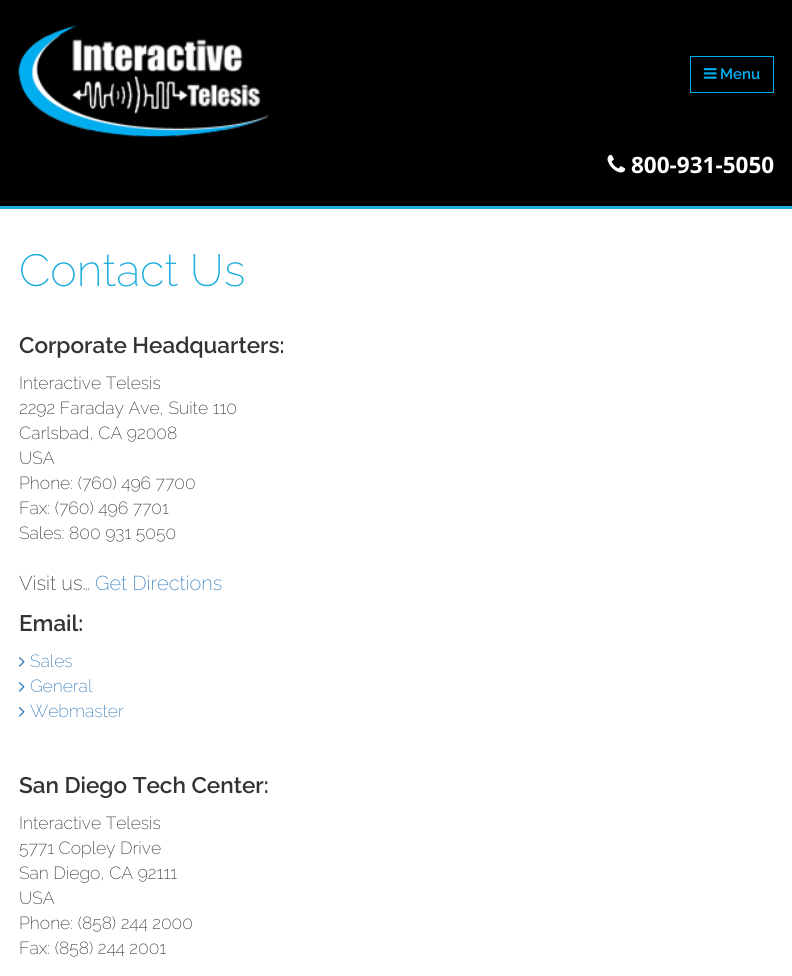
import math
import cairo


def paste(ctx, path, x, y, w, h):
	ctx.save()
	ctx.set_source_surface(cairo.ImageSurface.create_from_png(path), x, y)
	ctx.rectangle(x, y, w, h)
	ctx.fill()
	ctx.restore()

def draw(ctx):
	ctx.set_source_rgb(1, 1, 1)
	ctx.paint()
	ctx.set_source_rgb(0, 0, 0)
	ctx.rectangle(0, 0, 792, 206)
	ctx.fill()
	paste(ctx, 'media/1.png', 18, 25, 250, 112)
	ctx.rectangle(690.5, 56.5, 83, 36)
	ctx.set_source_rgb(0.012, 0.682, 0.937)
	ctx.set_line_width(1)
	ctx.stroke()
	paste(ctx, 'media/2.png', 703, 68, 14, 11)
	ctx.select_font_face('Raleway SemiBold')
	ctx.set_font_size(15)
	ctx.move_to(720, 79)
	ctx.show_text('Menu')
	paste(ctx, 'media/3.png', 607, 154, 19, 19)
	ctx.select_font_face('Open Sans', cairo.FONT_SLANT_NORMAL, cairo.FONT_WEIGHT_BOLD)
	ctx.set_font_size(22.5)
	ctx.set_source_rgb(1, 1, 1)
	ctx.move_to(631, 173)
	ctx.show_text('800-931-5050')
	ctx.set_source_rgb(0.118, 0.678, 0.863)
	ctx.rectangle(0, 206, 792, 3)
	ctx.fill()
	ctx.select_font_face('Raleway ExtraLight')
	ctx.set_font_size(45)
	ctx.move_to(19, 286)
	ctx.show_text('Contact Us')
	ctx.select_font_face('Raleway SemiBold')
	ctx.set_font_size(22.5)
	ctx.set_source_rgb(0.2, 0.2, 0.2)
	ctx.move_to(19, 353)
	ctx.show_text('Corporate Headquarters:')
	ctx.select_font_face('Raleway ExtraLight')
	ctx.set_font_size(17.5)
	for x, y, s in [
		(19, 389, 'Interactive Telesis'),
		(19, 414, '2292 Faraday Ave, Suite 110'),
		(19, 439, 'Carlsbad, CA 92008'),
		(19, 464, 'USA'),
		(19, 489, 'Phone: (760) 496 7700'),
		(19, 514, 'Fax: (760) 496 7701'),
		(19, 539, 'Sales: 800 931 5050'),
	]:
		ctx.move_to(x, y)
		ctx.show_text(s)
	ctx.set_font_size(20)
	ctx.move_to(19, 590)
	ctx.show_text('Visit us…')
	ctx.set_source_rgb(0.2, 0.478, 0.718)
	ctx.move_to(95, 590)
	ctx.show_text('Get Directions')
	ctx.select_font_face('Raleway SemiBold')
	ctx.set_font_size(22.5)
	ctx.set_source_rgb(0.2, 0.2, 0.2)
	ctx.move_to(19, 631)
	ctx.show_text('Email:')
	paste(ctx, 'media/4.png', 18, 657, 7, 10)
	ctx.select_font_face('Raleway ExtraLight')
	ctx.set_font_size(17.5)
	ctx.set_source_rgb(0.2, 0.478, 0.718)
	ctx.move_to(30, 667)
	ctx.show_text('Sales')
	paste(ctx, 'media/4.png', 18, 682, 7, 10)
	ctx.move_to(30, 692)
	ctx.show_text('General')
	paste(ctx, 'media/4.png', 18, 707, 7, 10)
	ctx.move_to(30, 717)
	ctx.show_text('Webmaster')
	ctx.select_font_face('Raleway SemiBold')
	ctx.set_font_size(22.5)
	ctx.set_source_rgb(0.2, 0.2, 0.2)
	ctx.move_to(19, 793)
	ctx.show_text('San Diego Tech Center:')
	ctx.select_font_face('Raleway ExtraLight')
	ctx.set_font_size(17.5)
	for x, y, s in [
		(19, 829, 'Interactive Telesis'),
		(19, 854, '5771 Copley Drive'),
		(19, 879, 'San Diego, CA 92111'),
		(19, 904, 'USA'),
		(19, 929, 'Phone: (858) 244 2000'),
		(19, 954, 'Fax: (858) 244 2001'),
	]:
		ctx.move_to(x, y)
		ctx.show_text(s)


surface = cairo.ImageSurface(cairo.FORMAT_RGB24, 792, 976)
ctx = cairo.Context(surface)
options = cairo.FontOptions()
options.set_hint_metrics(cairo.HINT_METRICS_OFF)
options.set_hint_style(cairo.HINT_STYLE_NONE)
ctx.set_font_options(options)
ctx.set_miter_limit(4)
draw(ctx)
surface.write_to_png('image.png')
